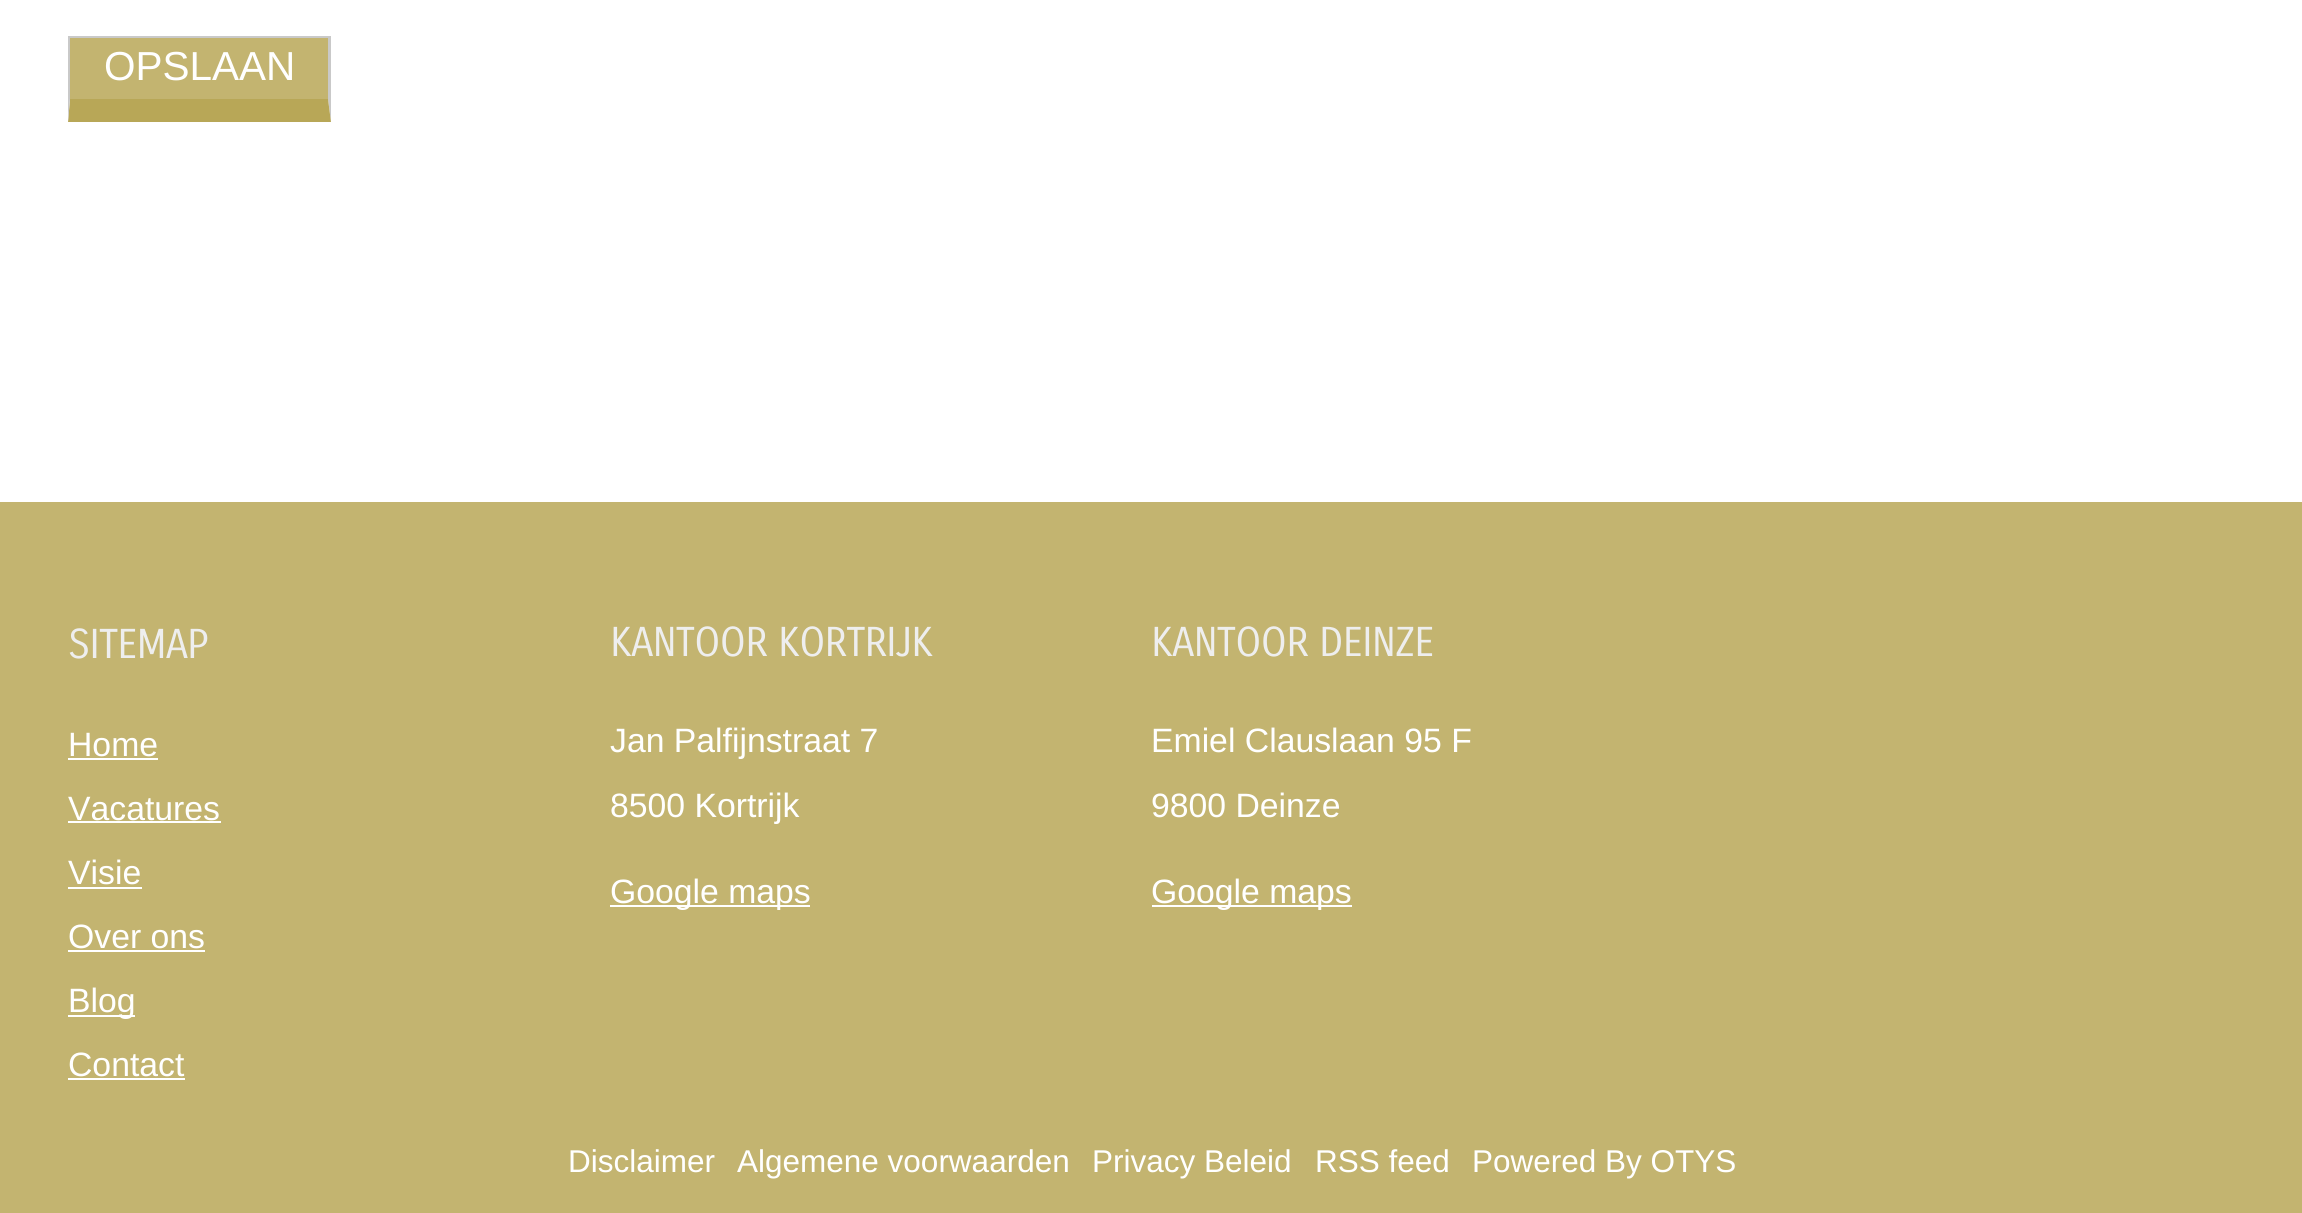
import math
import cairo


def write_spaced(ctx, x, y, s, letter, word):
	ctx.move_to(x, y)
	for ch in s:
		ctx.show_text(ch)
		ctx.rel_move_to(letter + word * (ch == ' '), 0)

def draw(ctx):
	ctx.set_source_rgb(1, 1, 1)
	ctx.paint()
	ctx.set_source_rgb(0.765, 0.706, 0.439)
	ctx.rectangle(70, 38, 258, 61)
	ctx.fill()
	ctx.set_source_rgb(0.788, 0.788, 0.788)
	ctx.rectangle(68, 36, 263, 2)
	ctx.fill()
	ctx.new_path()
	ctx.move_to(331, 36)
	ctx.line_to(331, 122)
	ctx.line_to(328, 99)
	ctx.line_to(328, 38)
	ctx.close_path()
	ctx.fill()
	ctx.set_source_rgb(0.722, 0.655, 0.341)
	ctx.new_path()
	ctx.move_to(331, 122)
	ctx.line_to(68, 122)
	ctx.line_to(70, 99)
	ctx.line_to(328, 99)
	ctx.close_path()
	ctx.fill()
	ctx.set_source_rgb(0.788, 0.788, 0.788)
	ctx.new_path()
	ctx.move_to(68, 122)
	ctx.line_to(68, 36)
	ctx.line_to(70, 38)
	ctx.line_to(70, 99)
	ctx.close_path()
	ctx.fill()
	ctx.select_font_face('Liberation Sans')
	ctx.set_font_size(40.5)
	ctx.set_source_rgb(1, 1, 1)
	ctx.move_to(104, 80)
	ctx.show_text('OPSLAAN')
	ctx.set_source_rgb(0.765, 0.706, 0.439)
	ctx.rectangle(0, 502, 2302, 711)
	ctx.fill()
	ctx.select_font_face('Carrois Gothic')
	ctx.set_source_rgb(0.933, 0.933, 0.933)
	write_spaced(ctx, 68, 658, 'SITEMAP', -1, 0)
	ctx.select_font_face('Liberation Sans')
	ctx.set_font_size(33.75)
	ctx.set_source_rgb(1, 1, 1)
	ctx.move_to(68, 756)
	ctx.show_text('Home')
	ctx.rectangle(68, 758, 90, 2)
	ctx.fill()
	ctx.move_to(68, 820)
	ctx.show_text('Vacatures')
	ctx.rectangle(68, 821, 153, 2)
	ctx.fill()
	ctx.move_to(68, 884)
	ctx.show_text('Visie')
	ctx.rectangle(68, 887, 74, 2)
	ctx.fill()
	ctx.move_to(68, 948)
	ctx.show_text('Over ons')
	ctx.rectangle(68, 950, 137, 2)
	ctx.fill()
	ctx.rectangle(68, 1015, 67, 2)
	ctx.fill()
	ctx.move_to(68, 1012)
	ctx.show_text('Blog')
	ctx.move_to(68, 1076)
	ctx.show_text('Contact')
	ctx.rectangle(68, 1078, 117, 2)
	ctx.fill()
	ctx.select_font_face('Carrois Gothic')
	ctx.set_font_size(40.5)
	ctx.set_source_rgb(0.933, 0.933, 0.933)
	write_spaced(ctx, 610, 656, 'KANTOOR KORTRIJK', -1, 0)
	ctx.select_font_face('Liberation Sans')
	ctx.set_font_size(33.75)
	ctx.set_source_rgb(1, 1, 1)
	ctx.move_to(610, 752)
	ctx.show_text('Jan Palfijnstraat 7')
	ctx.move_to(610, 817)
	ctx.show_text('8500 Kortrijk')
	ctx.rectangle(610, 905, 200, 2)
	ctx.fill()
	ctx.move_to(610, 903)
	ctx.show_text('Google maps')
	ctx.select_font_face('Carrois Gothic')
	ctx.set_font_size(40.5)
	ctx.set_source_rgb(0.933, 0.933, 0.933)
	write_spaced(ctx, 1151, 656, 'KANTOOR DEINZE', -1, 0)
	ctx.select_font_face('Liberation Sans')
	ctx.set_font_size(33.75)
	ctx.set_source_rgb(1, 1, 1)
	ctx.move_to(1151, 752)
	ctx.show_text('Emiel Clauslaan 95 F')
	ctx.move_to(1151, 817)
	ctx.show_text('9800 Deinze')
	ctx.rectangle(1152, 905, 200, 2)
	ctx.fill()
	ctx.move_to(1151, 903)
	ctx.show_text('Google maps')
	ctx.set_font_size(31.5)
	for x, y, s in [
		(568, 1172, 'Disclaimer'),
		(737, 1172, 'Algemene voorwaarden'),
		(1092, 1172, 'Privacy Beleid'),
		(1315, 1172, 'RSS feed'),
		(1472, 1172, 'Powered By OTYS'),
	]:
		ctx.move_to(x, y)
		ctx.show_text(s)


surface = cairo.ImageSurface(cairo.FORMAT_RGB24, 2302, 1213)
ctx = cairo.Context(surface)
options = cairo.FontOptions()
options.set_hint_metrics(cairo.HINT_METRICS_OFF)
options.set_hint_style(cairo.HINT_STYLE_NONE)
ctx.set_font_options(options)
ctx.set_miter_limit(4)
draw(ctx)
surface.write_to_png('image.png')
